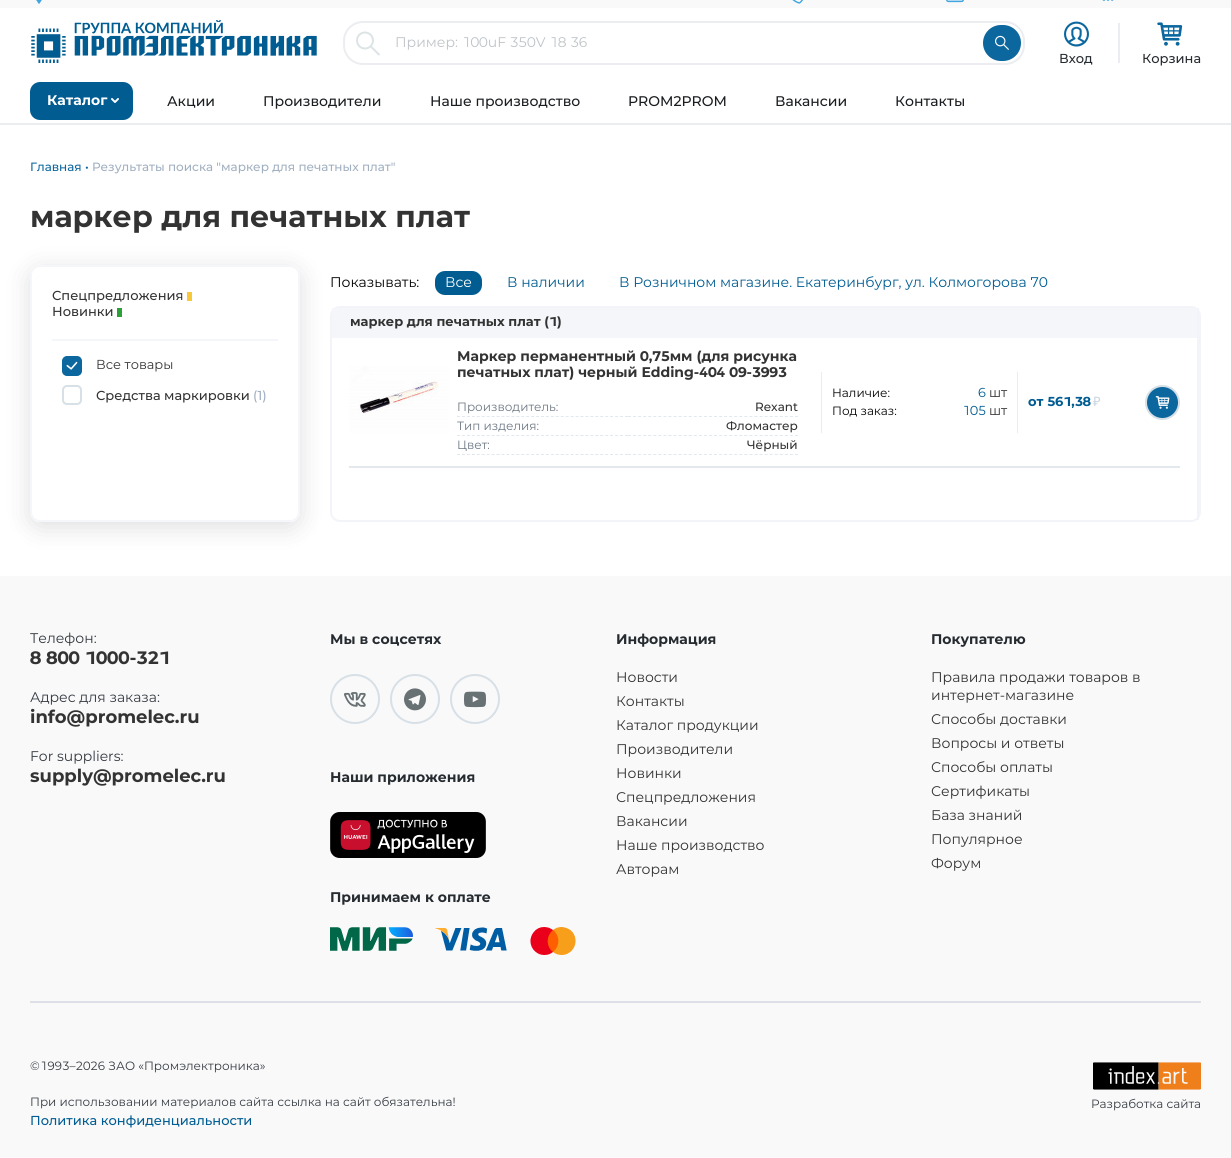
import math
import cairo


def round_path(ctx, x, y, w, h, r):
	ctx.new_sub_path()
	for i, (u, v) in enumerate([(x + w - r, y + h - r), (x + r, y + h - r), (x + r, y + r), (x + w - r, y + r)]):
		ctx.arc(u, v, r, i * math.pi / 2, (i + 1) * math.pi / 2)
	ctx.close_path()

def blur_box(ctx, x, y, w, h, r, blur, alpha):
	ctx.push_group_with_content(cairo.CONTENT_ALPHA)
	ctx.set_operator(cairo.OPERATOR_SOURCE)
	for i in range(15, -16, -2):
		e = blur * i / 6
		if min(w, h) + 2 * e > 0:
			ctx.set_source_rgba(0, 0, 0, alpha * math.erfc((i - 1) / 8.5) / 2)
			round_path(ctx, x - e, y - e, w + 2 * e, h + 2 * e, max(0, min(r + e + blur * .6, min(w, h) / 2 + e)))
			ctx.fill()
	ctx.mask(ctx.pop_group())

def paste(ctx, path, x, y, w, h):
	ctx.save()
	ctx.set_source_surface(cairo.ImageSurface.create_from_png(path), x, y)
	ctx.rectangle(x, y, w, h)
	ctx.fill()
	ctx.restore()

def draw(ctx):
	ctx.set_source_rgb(1, 1, 1)
	ctx.paint()
	ctx.set_source_rgb(0.925, 0.929, 0.945)
	ctx.rectangle(0, 123, 1231, 2)
	ctx.fill()
	ctx.set_source_rgb(0.973, 0.976, 0.98)
	ctx.rectangle(0, 0, 1231, 8)
	ctx.fill()
	paste(ctx, 'media/1.png', 36, 0, 6, 4)
	paste(ctx, 'media/2.png', 792, 0, 11, 4)
	paste(ctx, 'media/3.png', 946, 0, 18, 3)
	paste(ctx, 'media/4.png', 1102, 0, 12, 1)
	paste(ctx, 'media/5.png', 31, 20, 286, 43)
	round_path(ctx, 344, 22, 680, 42, 19)
	ctx.set_source_rgb(0.925, 0.929, 0.945)
	ctx.stroke()
	paste(ctx, 'media/6.png', 356, 31, 24, 25)
	ctx.select_font_face('Montserrat')
	ctx.set_font_size(14)
	ctx.set_source_rgb(0.749, 0.769, 0.784)
	ctx.move_to(395, 47)
	ctx.show_text('Пример: 100uF 350V 18 36')
	ctx.set_source_rgb(0.047, 0.404, 0.624)
	round_path(ctx, 984, 26, 36, 34, 17)
	ctx.fill_preserve()
	ctx.stroke()
	paste(ctx, 'media/7.png', 995, 35, 14, 15)
	paste(ctx, 'media/8.png', 1064, 21, 25, 26)
	ctx.select_font_face('Montserrat Medium')
	ctx.set_font_size(13)
	ctx.set_source_rgb(0.149, 0.169, 0.188)
	ctx.move_to(1059, 63)
	ctx.show_text('Вход')
	ctx.set_source_rgb(0.925, 0.929, 0.945)
	ctx.rectangle(1118, 23, 2, 40)
	ctx.fill()
	paste(ctx, 'media/9.png', 1157, 22, 26, 24)
	ctx.set_source_rgb(0.149, 0.169, 0.188)
	ctx.move_to(1142, 63)
	ctx.show_text('Корзина')
	ctx.set_source_rgb(0, 0.361, 0.569)
	round_path(ctx, 31, 83, 101, 36, 9)
	ctx.fill_preserve()
	ctx.stroke()
	ctx.select_font_face('Montserrat', cairo.FONT_SLANT_NORMAL, cairo.FONT_WEIGHT_BOLD)
	ctx.set_font_size(14)
	ctx.set_source_rgb(1, 1, 1)
	ctx.move_to(47, 105)
	ctx.show_text('Каталог')
	paste(ctx, 'media/10.png', 111, 98, 8, 5)
	ctx.select_font_face('Montserrat Medium')
	ctx.set_source_rgb(0.106, 0.118, 0.129)
	for x, y, s in [
		(167, 106, 'Акции'),
		(263, 106, 'Производители'),
		(430, 106, 'Наше производство'),
		(628, 106, 'PROM2PROM'),
		(775, 106, 'Вакансии'),
		(895, 106, 'Контакты'),
	]:
		ctx.move_to(x, y)
		ctx.show_text(s)
	ctx.set_font_size(12)
	ctx.set_source_rgb(0.047, 0.404, 0.624)
	ctx.move_to(30, 171)
	ctx.show_text('Главная •')
	ctx.set_source_rgb(0.631, 0.69, 0.757)
	ctx.move_to(92, 171)
	ctx.show_text('Результаты поиска "маркер для печатных плат"')
	ctx.select_font_face('Montserrat', cairo.FONT_SLANT_NORMAL, cairo.FONT_WEIGHT_BOLD)
	ctx.set_font_size(30)
	ctx.set_source_rgb(0.2, 0.2, 0.2)
	ctx.move_to(30, 227)
	ctx.show_text('маркер для печатных плат')
	ctx.save()
	ctx.set_fill_rule(cairo.FILL_RULE_EVEN_ODD)
	ctx.new_path()
	ctx.move_to(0, 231)
	ctx.line_to(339, 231)
	ctx.line_to(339, 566)
	ctx.line_to(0, 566)
	ctx.close_path()
	ctx.move_to(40, 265)
	ctx.line_to(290, 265)
	ctx.curve_to(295.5, 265, 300, 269.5, 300, 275)
	ctx.line_to(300, 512)
	ctx.curve_to(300, 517.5, 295.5, 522, 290, 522)
	ctx.line_to(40, 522)
	ctx.curve_to(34.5, 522, 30, 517.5, 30, 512)
	ctx.line_to(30, 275)
	ctx.curve_to(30, 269.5, 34.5, 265, 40, 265)
	ctx.close_path()
	ctx.clip()
	ctx.set_source_rgb(0.133, 0.145, 0.18)
	blur_box(ctx, 30, 270, 270, 257, 10, 12.5, 0.15)
	ctx.restore()
	round_path(ctx, 31, 266, 268, 255, 9)
	ctx.set_source_rgb(0.957, 0.961, 0.973)
	ctx.stroke()
	ctx.rectangle(52, 339, 226, 2)
	ctx.fill()
	ctx.select_font_face('Montserrat Medium')
	ctx.set_font_size(13)
	ctx.set_source_rgb(0.2, 0.2, 0.2)
	ctx.move_to(52, 300)
	ctx.show_text('Спецпредложения')
	ctx.set_source_rgb(0.965, 0.784, 0.227)
	ctx.rectangle(187, 292, 5, 9)
	ctx.fill()
	ctx.set_source_rgb(0.2, 0.2, 0.2)
	ctx.move_to(52, 316)
	ctx.show_text('Новинки')
	ctx.set_source_rgb(0.176, 0.627, 0.224)
	ctx.rectangle(117, 308, 5, 9)
	ctx.fill()
	ctx.set_source_rgb(0.047, 0.404, 0.624)
	round_path(ctx, 63, 357, 18, 18, 4)
	ctx.fill_preserve()
	ctx.stroke()
	paste(ctx, 'media/11.png', 66, 361, 12, 9)
	ctx.select_font_face('Montserrat')
	ctx.set_source_rgb(0.2, 0.2, 0.2)
	ctx.move_to(96, 369)
	ctx.show_text('Все товары')
	round_path(ctx, 63, 386, 18, 18, 4)
	ctx.set_source_rgb(0.843, 0.878, 0.902)
	ctx.stroke()
	ctx.select_font_face('Montserrat Medium')
	ctx.set_source_rgb(0.2, 0.2, 0.2)
	ctx.move_to(96, 400)
	ctx.show_text('Средства маркировки')
	ctx.set_source_rgb(0.631, 0.69, 0.757)
	ctx.move_to(253, 400)
	ctx.show_text('(1)')
	ctx.select_font_face('Montserrat')
	ctx.set_font_size(14)
	ctx.set_source_rgb(0, 0, 0)
	ctx.move_to(330, 287)
	ctx.show_text('Показывать:')
	ctx.set_source_rgb(0, 0.361, 0.569)
	round_path(ctx, 435, 271, 47, 24, 10)
	ctx.fill()
	ctx.set_source_rgb(1, 1, 1)
	ctx.move_to(445, 287)
	ctx.show_text('Все')
	ctx.set_source_rgb(0, 0.361, 0.569)
	ctx.move_to(507, 287)
	ctx.show_text('В наличии')
	ctx.move_to(619, 287)
	ctx.show_text('В Розничном магазине. Екатеринбург, ул. Колмогорова 70')
	round_path(ctx, 331, 307, 869, 214, 9)
	ctx.set_source_rgb(0.953, 0.957, 0.976)
	ctx.stroke()
	ctx.rectangle(1197, 308, 2, 212)
	ctx.fill()
	ctx.set_source_rgb(0.957, 0.961, 0.973)
	ctx.rectangle(332, 308, 865, 30)
	ctx.fill()
	ctx.select_font_face('Montserrat', cairo.FONT_SLANT_NORMAL, cairo.FONT_WEIGHT_BOLD)
	ctx.set_font_size(13)
	ctx.set_source_rgb(0.2, 0.2, 0.2)
	ctx.move_to(350, 326)
	ctx.show_text('маркер для печатных плат (1)')
	ctx.set_source_rgb(0.89, 0.91, 0.933)
	ctx.rectangle(349, 466, 831, 2)
	ctx.fill()
	paste(ctx, 'media/12.png', 349, 349, 100, 100)
	ctx.set_font_size(14)
	ctx.set_source_rgb(0.2, 0.2, 0.2)
	ctx.move_to(457, 361)
	ctx.show_text('Маркер перманентный 0,75мм (для рисунка')
	ctx.move_to(457, 377)
	ctx.show_text('печатных плат) черный Edding-404 09-3993')
	ctx.new_path()
	ctx.move_to(457, 416.5)
	ctx.line_to(628, 416.5)
	ctx.set_source_rgb(0.89, 0.91, 0.933)
	ctx.set_line_width(1)
	ctx.set_dash([3, 1.94])
	ctx.stroke()
	ctx.select_font_face('Montserrat')
	ctx.set_font_size(12)
	ctx.set_source_rgb(0.424, 0.463, 0.51)
	ctx.move_to(457, 411)
	ctx.show_text('Производитель:')
	ctx.new_path()
	ctx.move_to(628, 416.5)
	ctx.line_to(798, 416.5)
	ctx.set_source_rgb(0.89, 0.91, 0.933)
	ctx.set_dash([3, 2.06])
	ctx.stroke()
	ctx.select_font_face('Montserrat Medium')
	ctx.set_source_rgb(0.2, 0.2, 0.2)
	ctx.move_to(755, 411)
	ctx.show_text('Rexant')
	ctx.new_path()
	ctx.move_to(457, 435.5)
	ctx.line_to(628, 435.5)
	ctx.set_source_rgb(0.89, 0.91, 0.933)
	ctx.set_dash([3, 1.94])
	ctx.stroke()
	ctx.select_font_face('Montserrat')
	ctx.set_source_rgb(0.424, 0.463, 0.51)
	ctx.move_to(457, 430)
	ctx.show_text('Тип изделия:')
	ctx.new_path()
	ctx.move_to(628, 435.5)
	ctx.line_to(798, 435.5)
	ctx.set_source_rgb(0.89, 0.91, 0.933)
	ctx.set_dash([3, 2.06])
	ctx.stroke()
	ctx.select_font_face('Montserrat Medium')
	ctx.set_source_rgb(0.2, 0.2, 0.2)
	ctx.move_to(726, 430)
	ctx.show_text('Фломастер')
	ctx.new_path()
	ctx.move_to(457, 454.5)
	ctx.line_to(628, 454.5)
	ctx.set_source_rgb(0.89, 0.91, 0.933)
	ctx.set_dash([3, 1.94])
	ctx.stroke()
	ctx.select_font_face('Montserrat')
	ctx.set_source_rgb(0.424, 0.463, 0.51)
	ctx.move_to(457, 449)
	ctx.show_text('Цвет:')
	ctx.new_path()
	ctx.move_to(628, 454.5)
	ctx.line_to(798, 454.5)
	ctx.set_source_rgb(0.89, 0.91, 0.933)
	ctx.set_dash([3, 2.06])
	ctx.stroke()
	ctx.select_font_face('Montserrat Medium')
	ctx.set_source_rgb(0.2, 0.2, 0.2)
	ctx.move_to(747, 449)
	ctx.show_text('Чёрный')
	ctx.set_source_rgb(0.918, 0.925, 0.941)
	ctx.rectangle(1017, 372, 1, 61)
	ctx.fill()
	ctx.rectangle(821, 372, 1, 61)
	ctx.fill()
	ctx.select_font_face('Montserrat')
	ctx.set_source_rgb(0, 0, 0)
	ctx.move_to(832, 397)
	ctx.show_text('Наличие:')
	ctx.set_font_size(13)
	ctx.set_source_rgb(0, 0.361, 0.569)
	ctx.move_to(978, 397)
	ctx.show_text('6')
	ctx.set_source_rgb(0.2, 0.2, 0.2)
	ctx.move_to(989, 397)
	ctx.show_text('шт')
	ctx.set_font_size(12)
	ctx.set_source_rgb(0, 0, 0)
	ctx.move_to(832, 415)
	ctx.show_text('Под заказ:')
	ctx.set_font_size(13)
	ctx.set_source_rgb(0, 0.361, 0.569)
	ctx.move_to(962, 415)
	ctx.show_text('105')
	ctx.set_source_rgb(0.2, 0.2, 0.2)
	ctx.move_to(989, 415)
	ctx.show_text('шт')
	ctx.select_font_face('Montserrat', cairo.FONT_SLANT_NORMAL, cairo.FONT_WEIGHT_BOLD)
	ctx.set_source_rgb(0, 0.361, 0.569)
	ctx.move_to(1028, 406)
	ctx.show_text('от 561,38')
	ctx.select_font_face('Noto Sans')
	ctx.set_source_rgb(0.788, 0.835, 0.871)
	ctx.move_to(1093, 406)
	ctx.show_text('₽')
	ctx.set_source_rgb(0.047, 0.404, 0.624)
	ctx.new_path()
	ctx.arc(1162.5, 402.5, 16.5, 0, 2 * math.pi)
	ctx.fill_preserve()
	ctx.set_source_rgb(0.843, 0.878, 0.902)
	ctx.set_line_width(2)
	ctx.set_dash([])
	ctx.stroke()
	paste(ctx, 'media/13.png', 1155, 396, 15, 13)
	ctx.set_source_rgb(0.973, 0.976, 0.98)
	ctx.rectangle(0, 576, 1231, 582)
	ctx.fill()
	ctx.select_font_face('Montserrat')
	ctx.set_font_size(14)
	ctx.set_source_rgb(0.204, 0.227, 0.251)
	ctx.move_to(30, 643)
	ctx.show_text('Телефон:')
	ctx.select_font_face('Montserrat', cairo.FONT_SLANT_NORMAL, cairo.FONT_WEIGHT_BOLD)
	ctx.set_font_size(18)
	ctx.set_source_rgb(0.2, 0.2, 0.2)
	ctx.move_to(30, 664)
	ctx.show_text('8 800 1000-321')
	ctx.select_font_face('Montserrat')
	ctx.set_font_size(14)
	ctx.set_source_rgb(0.204, 0.227, 0.251)
	ctx.move_to(30, 702)
	ctx.show_text('Адрес для заказа:')
	ctx.select_font_face('Montserrat', cairo.FONT_SLANT_NORMAL, cairo.FONT_WEIGHT_BOLD)
	ctx.set_font_size(18)
	ctx.set_source_rgb(0.2, 0.2, 0.2)
	ctx.move_to(30, 723)
	ctx.show_text('info@promelec.ru')
	ctx.select_font_face('Montserrat')
	ctx.set_font_size(14)
	ctx.set_source_rgb(0.204, 0.227, 0.251)
	ctx.move_to(30, 761)
	ctx.show_text('For suppliers:')
	ctx.select_font_face('Montserrat', cairo.FONT_SLANT_NORMAL, cairo.FONT_WEIGHT_BOLD)
	ctx.set_font_size(18)
	ctx.set_source_rgb(0.2, 0.2, 0.2)
	ctx.move_to(30, 782)
	ctx.show_text('supply@promelec.ru')
	ctx.set_font_size(14)
	ctx.set_source_rgb(0.149, 0.169, 0.188)
	ctx.move_to(330, 644)
	ctx.show_text('Мы в соцсетях')
	ctx.new_path()
	ctx.arc(355, 699, 24, 0, 2 * math.pi)
	ctx.set_source_rgb(0.843, 0.878, 0.902)
	ctx.stroke()
	paste(ctx, 'media/14.png', 344, 692, 22, 15)
	ctx.arc(415, 699, 24, 0, 2 * math.pi)
	ctx.stroke()
	paste(ctx, 'media/15.png', 404, 688, 22, 23)
	ctx.arc(475, 699, 24, 0, 2 * math.pi)
	ctx.stroke()
	paste(ctx, 'media/16.png', 464, 691, 22, 17)
	ctx.set_source_rgb(0.149, 0.169, 0.188)
	ctx.move_to(330, 782)
	ctx.show_text('Наши приложения')
	paste(ctx, 'media/17.png', 330, 812, 156, 46)
	ctx.move_to(330, 902)
	ctx.show_text('Принимаем к оплате')
	paste(ctx, 'media/18.png', 330, 927, 83, 24)
	paste(ctx, 'media/19.png', 435, 927, 72, 24)
	paste(ctx, 'media/20.png', 530, 927, 46, 28)
	ctx.move_to(616, 644)
	ctx.show_text('Информация')
	ctx.select_font_face('Montserrat')
	ctx.set_source_rgb(0.2, 0.2, 0.2)
	for x, y, s in [
		(616, 682, 'Новости'),
		(616, 706, 'Контакты'),
		(616, 730, 'Каталог продукции'),
		(616, 754, 'Производители'),
		(616, 778, 'Новинки'),
		(616, 802, 'Спецпредложения'),
		(616, 826, 'Вакансии'),
		(616, 850, 'Наше производство'),
		(616, 874, 'Авторам'),
	]:
		ctx.move_to(x, y)
		ctx.show_text(s)
	ctx.select_font_face('Montserrat', cairo.FONT_SLANT_NORMAL, cairo.FONT_WEIGHT_BOLD)
	ctx.set_source_rgb(0.149, 0.169, 0.188)
	ctx.move_to(931, 644)
	ctx.show_text('Покупателю')
	ctx.select_font_face('Montserrat')
	ctx.set_source_rgb(0.2, 0.2, 0.2)
	for x, y, s in [
		(931, 682, 'Правила продажи товаров в'),
		(931, 700, 'интернет-магазине'),
		(931, 724, 'Способы доставки'),
		(931, 748, 'Вопросы и ответы'),
		(931, 772, 'Способы оплаты'),
		(931, 796, 'Сертификаты'),
		(931, 820, 'База знаний'),
		(931, 844, 'Популярное'),
		(931, 868, 'Форум'),
	]:
		ctx.move_to(x, y)
		ctx.show_text(s)
	ctx.set_source_rgb(0.871, 0.878, 0.906)
	ctx.rectangle(30, 1001, 1171, 2)
	ctx.fill()
	ctx.set_font_size(12)
	ctx.set_source_rgb(0.204, 0.227, 0.251)
	ctx.move_to(30, 1070)
	ctx.show_text('©1993–2026 ЗАО «Промэлектроника»')
	ctx.move_to(30, 1106)
	ctx.show_text('При использовании материалов сайта ссылка на сайт обязательна!')
	ctx.select_font_face('Montserrat Medium')
	ctx.set_font_size(13)
	ctx.set_source_rgb(0, 0.361, 0.569)
	ctx.move_to(30, 1125)
	ctx.show_text('Политика конфиденциальности')
	paste(ctx, 'media/21.png', 1093, 1062, 108, 28)
	ctx.select_font_face('Montserrat')
	ctx.set_font_size(12)
	ctx.set_source_rgb(0.204, 0.227, 0.251)
	ctx.move_to(1091, 1108)
	ctx.show_text('Разработка сайта')


surface = cairo.ImageSurface(cairo.FORMAT_RGB24, 1231, 1158)
ctx = cairo.Context(surface)
options = cairo.FontOptions()
options.set_hint_metrics(cairo.HINT_METRICS_OFF)
options.set_hint_style(cairo.HINT_STYLE_NONE)
ctx.set_font_options(options)
ctx.set_miter_limit(4)
draw(ctx)
surface.write_to_png('image.png')
